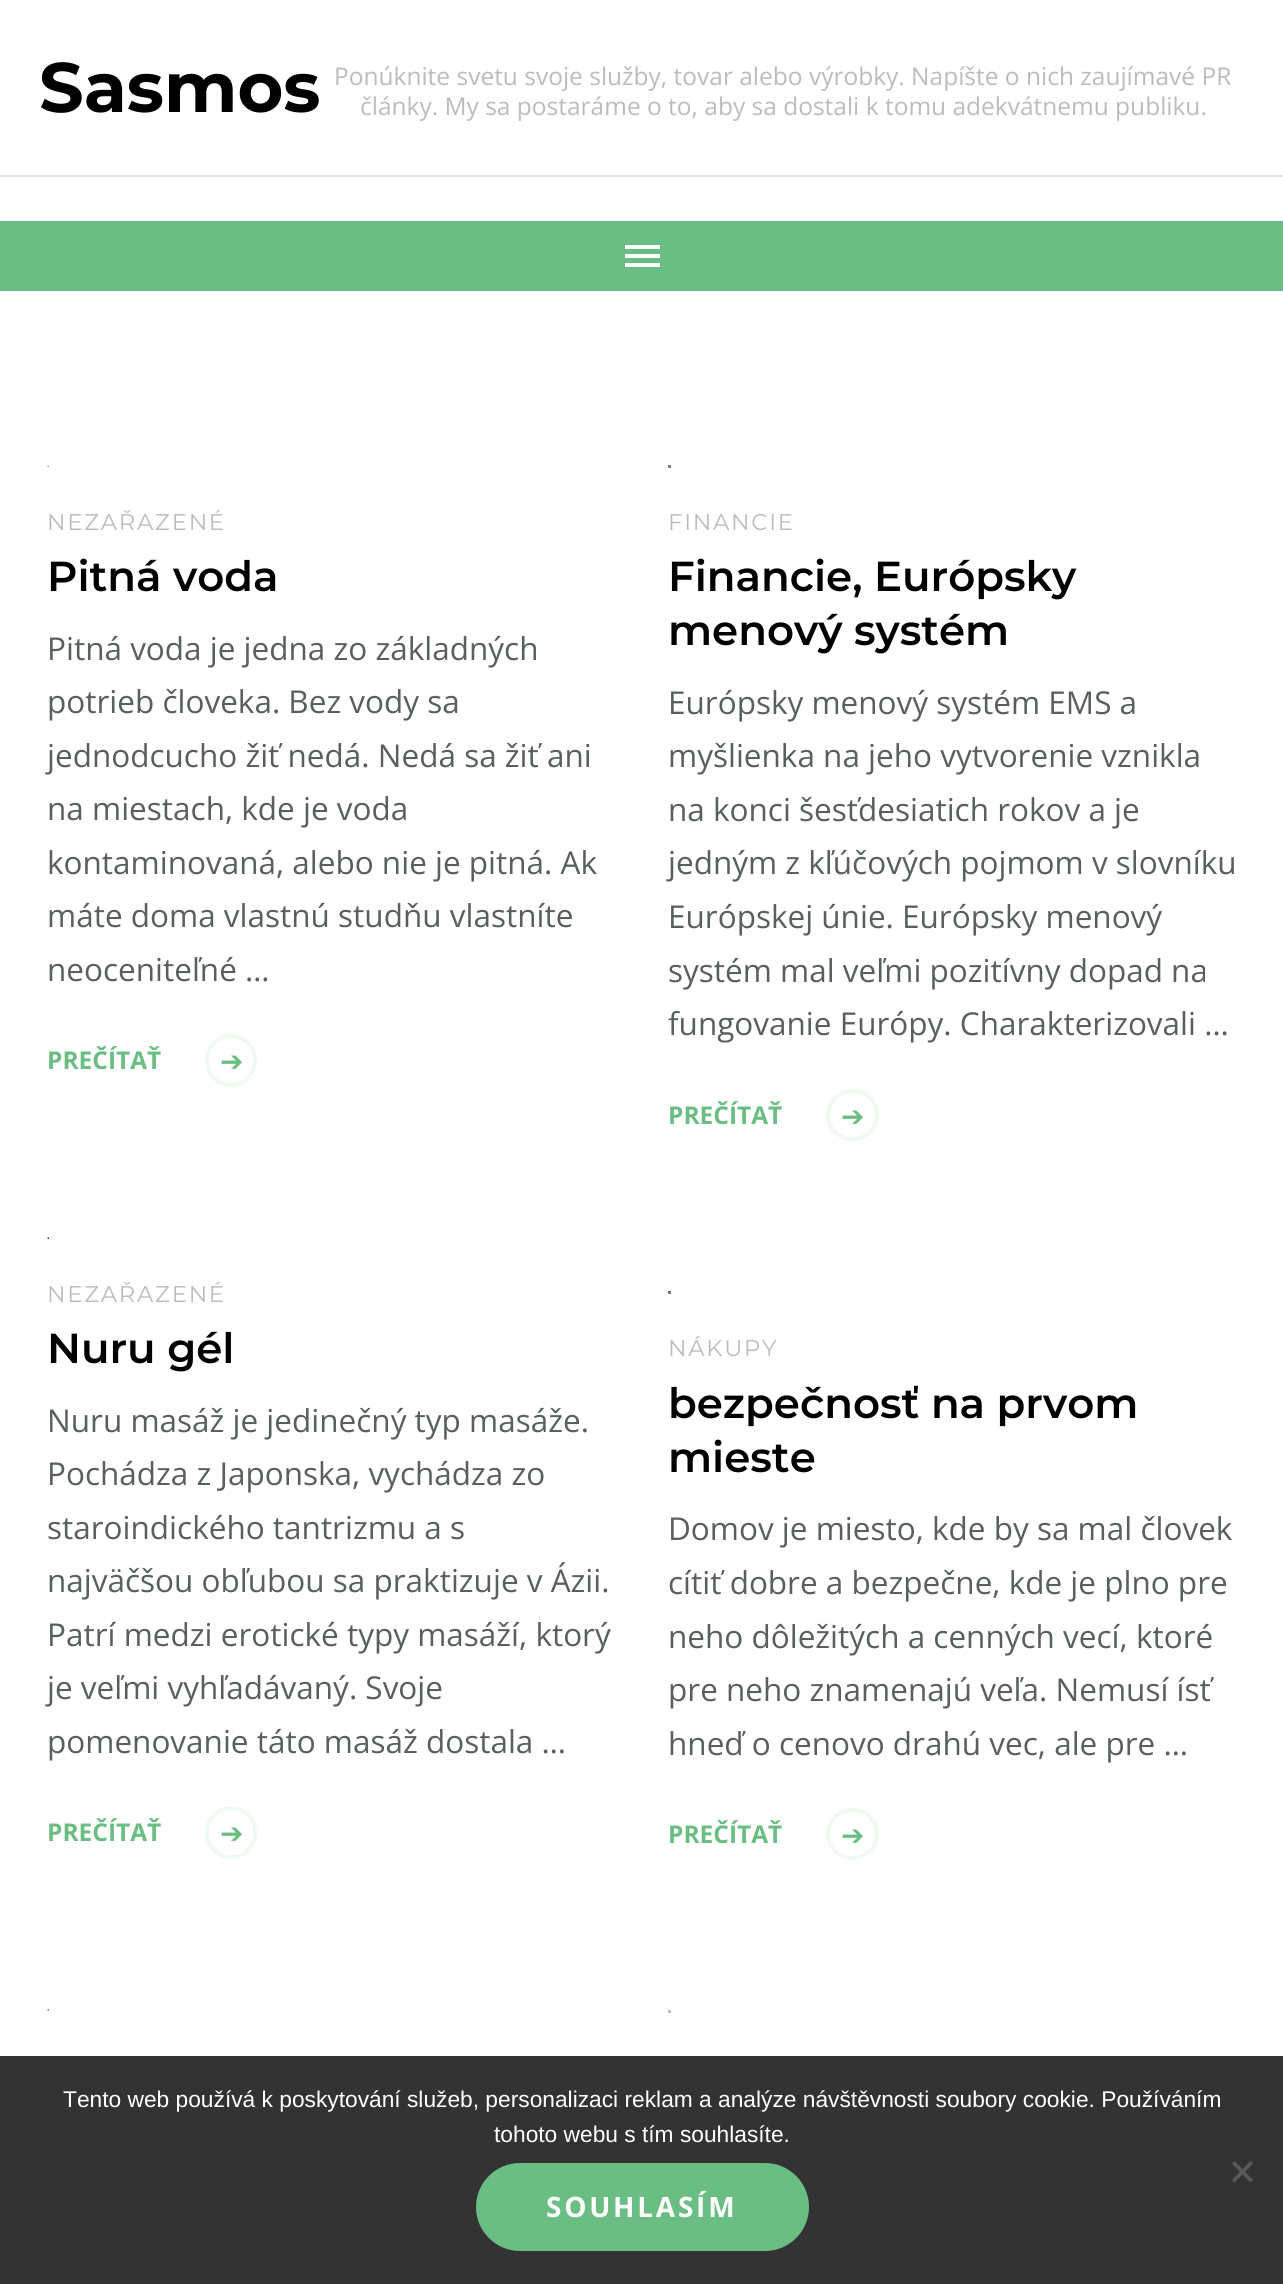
import math
import cairo


def write_spaced(ctx, x, y, s, letter, word):
	ctx.move_to(x, y)
	for ch in s:
		ctx.show_text(ch)
		ctx.rel_move_to(letter + word * (ch == ' '), 0)

def round_path(ctx, x, y, w, h, r):
	ctx.new_sub_path()
	for i, (u, v) in enumerate([(x + w - r, y + h - r), (x + r, y + h - r), (x + r, y + r), (x + w - r, y + r)]):
		ctx.arc(u, v, r, i * math.pi / 2, (i + 1) * math.pi / 2)
	ctx.close_path()

def paste(ctx, path, x, y, w, h):
	ctx.save()
	ctx.set_source_surface(cairo.ImageSurface.create_from_png(path), x, y)
	ctx.rectangle(x, y, w, h)
	ctx.fill()
	ctx.restore()

def draw(ctx):
	ctx.set_source_rgb(1, 1, 1)
	ctx.paint()
	ctx.set_source_rgb(0.898, 0.898, 0.898)
	ctx.rectangle(0, 175, 1283, 2)
	ctx.fill()
	ctx.select_font_face('Montserrat', cairo.FONT_SLANT_NORMAL, cairo.FONT_WEIGHT_BOLD)
	ctx.set_font_size(70)
	ctx.set_source_rgb(0, 0, 0)
	ctx.move_to(39, 112)
	ctx.show_text('Sasmos')
	ctx.select_font_face('Open Sans')
	ctx.set_font_size(24.5)
	ctx.set_source_rgb(0.725, 0.741, 0.741)
	ctx.move_to(334, 85)
	ctx.show_text('Ponúknite svetu svoje služby, tovar alebo výrobky. Napíšte o nich zaujímavé PR')
	ctx.move_to(360, 115)
	ctx.show_text('články. My sa postaráme o to, aby sa dostali k tomu adekvátnemu publiku.')
	ctx.set_source_rgb(0.416, 0.745, 0.514)
	ctx.rectangle(0, 221, 1283, 70)
	ctx.fill()
	ctx.set_source_rgb(1, 1, 1)
	ctx.rectangle(625, 245, 35, 4)
	ctx.rectangle(625, 254, 35, 4)
	ctx.rectangle(625, 263, 35, 4)
	ctx.fill()
	paste(ctx, 'media/1.png', 47, 465, 2, 3)
	ctx.select_font_face('Montserrat')
	ctx.set_font_size(22.75)
	ctx.set_source_rgb(0.725, 0.741, 0.741)
	write_spaced(ctx, 47, 530, 'NEZAŘAZENÉ', 1.75, 0)
	ctx.select_font_face('Montserrat SemiBold')
	ctx.set_font_size(41.9)
	ctx.set_source_rgb(0, 0, 0)
	ctx.move_to(47, 591)
	ctx.show_text('Pitná voda')
	ctx.select_font_face('Open Sans')
	ctx.set_font_size(31.5)
	ctx.set_source_rgb(0.349, 0.373, 0.373)
	for x, y, s in [
		(47, 660, 'Pitná voda je jedna zo základných'),
		(47, 713, 'potrieb človeka. Bez vody sa'),
		(47, 767, 'jednodcucho žiť nedá. Nedá sa žiť ani'),
		(47, 820, 'na miestach, kde je voda'),
		(47, 874, 'kontaminovaná, alebo nie je pitná. Ak'),
		(47, 927, 'máte doma vlastnú studňu vlastníte'),
		(47, 981, 'neoceniteľné …'),
	]:
		ctx.move_to(x, y)
		ctx.show_text(s)
	ctx.select_font_face('Open Sans', cairo.FONT_SLANT_NORMAL, cairo.FONT_WEIGHT_BOLD)
	ctx.set_font_size(24.5)
	ctx.set_source_rgb(0.416, 0.745, 0.514)
	ctx.move_to(47, 1069)
	ctx.show_text('PREČÍTAŤ')
	round_path(ctx, 207, 1036, 48, 49, 24)
	ctx.set_source_rgb(0.941, 0.973, 0.949)
	ctx.set_line_width(4)
	ctx.stroke()
	ctx.select_font_face('DejaVu Sans')
	ctx.set_font_size(28)
	ctx.set_source_rgb(0.416, 0.745, 0.514)
	ctx.move_to(220, 1071)
	ctx.show_text('➔')
	ctx.set_source_rgb(0.51, 0.51, 0.486)
	ctx.rectangle(668, 465, 3, 3)
	ctx.fill()
	ctx.select_font_face('Montserrat')
	ctx.set_font_size(22.75)
	ctx.set_source_rgb(0.725, 0.741, 0.741)
	write_spaced(ctx, 668, 530, 'FINANCIE', 1.75, 0)
	ctx.select_font_face('Montserrat SemiBold')
	ctx.set_font_size(41.9)
	ctx.set_source_rgb(0, 0, 0)
	ctx.move_to(668, 591)
	ctx.show_text('Financie, Európsky')
	ctx.move_to(668, 645)
	ctx.show_text('menový systém')
	ctx.select_font_face('Open Sans')
	ctx.set_font_size(31.5)
	ctx.set_source_rgb(0.349, 0.373, 0.373)
	for x, y, s in [
		(668, 714, 'Európsky menový systém EMS a'),
		(668, 767, 'myšlienka na jeho vytvorenie vznikla'),
		(668, 821, 'na konci šesťdesiatich rokov a je'),
		(668, 874, 'jedným z kľúčových pojmom v slovníku'),
		(668, 928, 'Európskej únie. Európsky menový'),
		(668, 982, 'systém mal veľmi pozitívny dopad na'),
		(668, 1035, 'fungovanie Európy. Charakterizovali …'),
	]:
		ctx.move_to(x, y)
		ctx.show_text(s)
	ctx.select_font_face('Open Sans', cairo.FONT_SLANT_NORMAL, cairo.FONT_WEIGHT_BOLD)
	ctx.set_font_size(24.5)
	ctx.set_source_rgb(0.416, 0.745, 0.514)
	ctx.move_to(668, 1124)
	ctx.show_text('PREČÍTAŤ')
	round_path(ctx, 828, 1091, 49, 48, 24)
	ctx.set_source_rgb(0.941, 0.973, 0.949)
	ctx.stroke()
	ctx.select_font_face('DejaVu Sans')
	ctx.set_font_size(28)
	ctx.set_source_rgb(0.416, 0.745, 0.514)
	ctx.move_to(841, 1126)
	ctx.show_text('➔')
	paste(ctx, 'media/2.png', 47, 1237, 2, 2)
	ctx.select_font_face('Montserrat')
	ctx.set_font_size(22.75)
	ctx.set_source_rgb(0.725, 0.741, 0.741)
	write_spaced(ctx, 47, 1302, 'NEZAŘAZENÉ', 1.75, 0)
	ctx.select_font_face('Montserrat SemiBold')
	ctx.set_font_size(41.9)
	ctx.set_source_rgb(0, 0, 0)
	ctx.move_to(47, 1363)
	ctx.show_text('Nuru gél')
	ctx.select_font_face('Open Sans')
	ctx.set_font_size(31.5)
	ctx.set_source_rgb(0.349, 0.373, 0.373)
	for x, y, s in [
		(47, 1432, 'Nuru masáž je jedinečný typ masáže.'),
		(47, 1485, 'Pochádza z Japonska, vychádza zo'),
		(47, 1539, 'staroindického tantrizmu a s'),
		(47, 1592, 'najväčšou obľubou sa praktizuje v Ázii.'),
		(47, 1646, 'Patrí medzi erotické typy masáží, ktorý'),
		(47, 1699, 'je veľmi vyhľadávaný. Svoje'),
		(47, 1753, 'pomenovanie táto masáž dostala …'),
	]:
		ctx.move_to(x, y)
		ctx.show_text(s)
	ctx.select_font_face('Open Sans', cairo.FONT_SLANT_NORMAL, cairo.FONT_WEIGHT_BOLD)
	ctx.set_font_size(24.5)
	ctx.set_source_rgb(0.416, 0.745, 0.514)
	ctx.move_to(47, 1841)
	ctx.show_text('PREČÍTAŤ')
	round_path(ctx, 207, 1808, 48, 49, 24)
	ctx.set_source_rgb(0.941, 0.973, 0.949)
	ctx.stroke()
	ctx.select_font_face('DejaVu Sans')
	ctx.set_font_size(28)
	ctx.set_source_rgb(0.416, 0.745, 0.514)
	ctx.move_to(220, 1843)
	ctx.show_text('➔')
	ctx.set_source_rgb(0.522, 0.424, 0.498)
	ctx.rectangle(668, 1291, 3, 3)
	ctx.fill()
	ctx.select_font_face('Montserrat')
	ctx.set_font_size(22.75)
	ctx.set_source_rgb(0.725, 0.741, 0.741)
	write_spaced(ctx, 668, 1356, 'NÁKUPY', 1.75, 0)
	ctx.select_font_face('Montserrat SemiBold')
	ctx.set_font_size(41.9)
	ctx.set_source_rgb(0, 0, 0)
	ctx.move_to(668, 1418)
	ctx.show_text('bezpečnosť na prvom')
	ctx.move_to(668, 1472)
	ctx.show_text('mieste')
	ctx.select_font_face('Open Sans')
	ctx.set_font_size(31.5)
	ctx.set_source_rgb(0.349, 0.373, 0.373)
	for x, y, s in [
		(668, 1540, 'Domov je miesto, kde by sa mal človek'),
		(668, 1594, 'cítiť dobre a bezpečne, kde je plno pre'),
		(668, 1648, 'neho dôležitých a cenných vecí, ktoré'),
		(668, 1701, 'pre neho znamenajú veľa. Nemusí ísť'),
		(668, 1755, 'hneď o cenovo drahú vec, ale pre …'),
	]:
		ctx.move_to(x, y)
		ctx.show_text(s)
	ctx.select_font_face('Open Sans', cairo.FONT_SLANT_NORMAL, cairo.FONT_WEIGHT_BOLD)
	ctx.set_font_size(24.5)
	ctx.set_source_rgb(0.416, 0.745, 0.514)
	ctx.move_to(668, 1843)
	ctx.show_text('PREČÍTAŤ')
	round_path(ctx, 828, 1810, 49, 48, 24)
	ctx.set_source_rgb(0.941, 0.973, 0.949)
	ctx.stroke()
	ctx.select_font_face('DejaVu Sans')
	ctx.set_font_size(28)
	ctx.set_source_rgb(0.416, 0.745, 0.514)
	ctx.move_to(841, 1845)
	ctx.show_text('➔')
	paste(ctx, 'media/3.png', 47, 2009, 2, 2)
	ctx.set_source_rgb(0.788, 0.71, 0.675)
	ctx.rectangle(668, 2010, 3, 3)
	ctx.fill()
	ctx.set_source_rgba(0, 0, 0, 0.8)
	ctx.rectangle(0, 2056, 1283, 228)
	ctx.fill()
	ctx.select_font_face('Liberation Sans')
	ctx.set_font_size(22.75)
	ctx.set_source_rgb(1, 1, 1)
	ctx.move_to(63, 2107)
	ctx.show_text('Tento web používá k poskytování služeb, personalizaci reklam a analýze návštěvnosti soubory cookie. Používáním')
	ctx.move_to(494, 2142)
	ctx.show_text('tohoto webu s tím souhlasíte.')
	ctx.set_source_rgb(0.353, 0.353, 0.353)
	ctx.new_path()
	ctx.move_to(1250.5, 2161)
	ctx.line_to(1253, 2163.5)
	ctx.line_to(1234.5, 2182.5)
	ctx.line_to(1232, 2180)
	ctx.close_path()
	ctx.fill()
	ctx.new_path()
	ctx.move_to(1232, 2163.5)
	ctx.line_to(1234.5, 2161)
	ctx.line_to(1253, 2180)
	ctx.line_to(1250.5, 2182.5)
	ctx.close_path()
	ctx.fill()
	ctx.set_source_rgb(0.416, 0.745, 0.514)
	round_path(ctx, 476, 2163, 333, 88, 44)
	ctx.fill()
	ctx.select_font_face('Open Sans', cairo.FONT_SLANT_NORMAL, cairo.FONT_WEIGHT_BOLD)
	ctx.set_font_size(28)
	ctx.set_source_rgb(1, 1, 1)
	write_spaced(ctx, 546, 2217, 'SOUHLASÍM', 2.75, 0)


surface = cairo.ImageSurface(cairo.FORMAT_RGB24, 1283, 2284)
ctx = cairo.Context(surface)
options = cairo.FontOptions()
options.set_hint_metrics(cairo.HINT_METRICS_OFF)
options.set_hint_style(cairo.HINT_STYLE_NONE)
ctx.set_font_options(options)
ctx.set_miter_limit(4)
draw(ctx)
surface.write_to_png('image.png')
